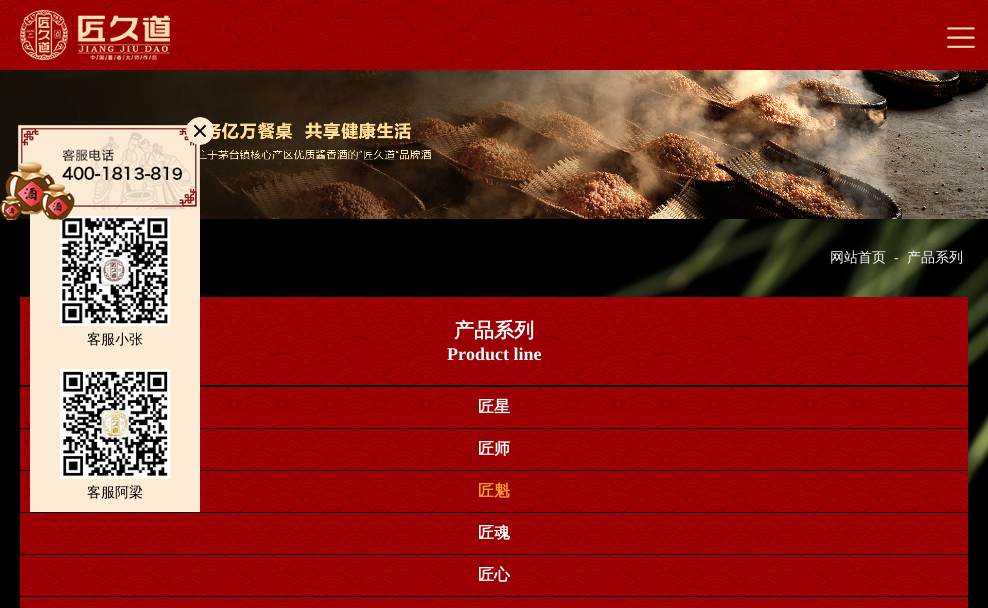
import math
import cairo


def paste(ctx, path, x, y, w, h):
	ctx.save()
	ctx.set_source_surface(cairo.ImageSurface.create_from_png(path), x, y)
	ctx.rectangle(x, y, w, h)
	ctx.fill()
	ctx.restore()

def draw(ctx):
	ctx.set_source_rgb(0, 0, 0)
	ctx.paint()
	paste(ctx, 'media/1.png', 0, 0, 988, 70)
	paste(ctx, 'media/2.png', 20, 10, 150, 50)
	paste(ctx, 'media/3.png', 947, 27, 29, 21)
	paste(ctx, 'media/4.png', 0, 70, 988, 149)
	paste(ctx, 'media/9.png', 455, 219, 533, 324)
	paste(ctx, 'media/10.png', 20, 297, 948, 311)
	ctx.set_source_rgb(0, 0, 0)
	ctx.rectangle(20, 385, 948, 2)
	ctx.rectangle(20, 428, 948, 1)
	ctx.rectangle(20, 470, 948, 1)
	ctx.fill()
	ctx.set_source_rgb(0.988, 0.918, 0.835)
	ctx.rectangle(30, 206, 170, 306)
	ctx.fill()
	paste(ctx, 'media/7.png', 60, 216, 110, 110)
	paste(ctx, 'media/6.png', 0, 125, 200, 95)
	paste(ctx, 'media/5.png', 186, 117, 28, 28)
	ctx.select_font_face('WenQuanYi Zen Hei Medium')
	ctx.set_font_size(14)
	ctx.set_source_rgb(0, 0, 0)
	ctx.move_to(87, 344)
	ctx.show_text('客服小张')
	paste(ctx, 'media/8.png', 60, 369, 110, 110)
	ctx.move_to(87, 497)
	ctx.show_text('客服阿梁')
	ctx.set_source_rgb(0.969, 0.969, 0.969)
	ctx.move_to(830, 262)
	ctx.show_text('网站首页')
	ctx.select_font_face('Liberation Serif')
	ctx.move_to(894, 262)
	ctx.show_text('-')
	ctx.select_font_face('WenQuanYi Zen Hei Medium')
	ctx.move_to(907, 262)
	ctx.show_text('产品系列')
	ctx.select_font_face('WenQuanYi Zen Hei', cairo.FONT_SLANT_NORMAL, cairo.FONT_WEIGHT_BOLD)
	ctx.set_font_size(20)
	ctx.set_source_rgb(1, 1, 1)
	ctx.move_to(454, 337)
	ctx.show_text('产品系列')
	ctx.select_font_face('Liberation Serif', cairo.FONT_SLANT_NORMAL, cairo.FONT_WEIGHT_BOLD)
	ctx.set_font_size(18)
	ctx.move_to(447, 360)
	ctx.show_text('Product line')
	ctx.select_font_face('WenQuanYi Zen Hei', cairo.FONT_SLANT_NORMAL, cairo.FONT_WEIGHT_BOLD)
	ctx.set_font_size(16)
	ctx.move_to(478, 412)
	ctx.show_text('匠星')
	ctx.move_to(478, 454)
	ctx.show_text('匠师')
	ctx.set_source_rgb(0, 0, 0)
	ctx.rectangle(20, 512, 948, 1)
	ctx.fill()
	ctx.set_source_rgb(0.996, 0.624, 0.18)
	ctx.move_to(478, 496)
	ctx.show_text('匠魁')
	ctx.set_source_rgb(0, 0, 0)
	ctx.rectangle(20, 554, 948, 1)
	ctx.fill()
	ctx.set_source_rgb(1, 1, 1)
	ctx.move_to(478, 538)
	ctx.show_text('匠魂')
	ctx.set_source_rgb(0, 0, 0)
	ctx.rectangle(20, 596, 948, 1)
	ctx.fill()
	ctx.set_source_rgb(1, 1, 1)
	ctx.move_to(478, 580)
	ctx.show_text('匠心')


surface = cairo.ImageSurface(cairo.FORMAT_RGB24, 988, 608)
ctx = cairo.Context(surface)
options = cairo.FontOptions()
options.set_hint_metrics(cairo.HINT_METRICS_OFF)
options.set_hint_style(cairo.HINT_STYLE_NONE)
ctx.set_font_options(options)
ctx.set_miter_limit(4)
draw(ctx)
surface.write_to_png('image.png')
